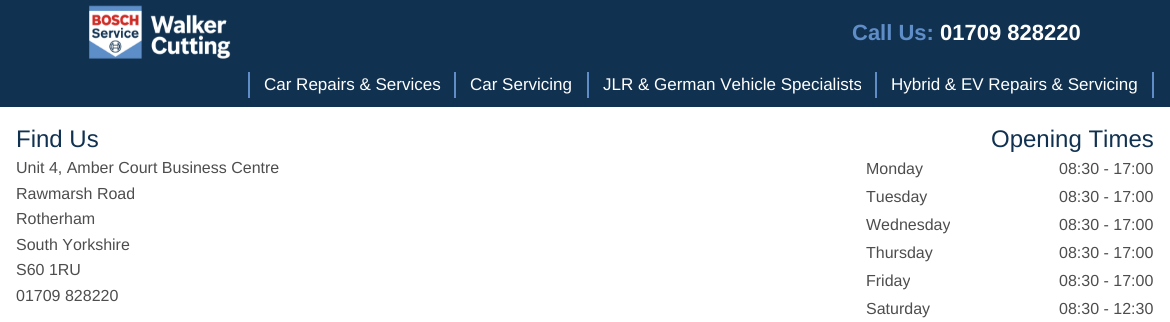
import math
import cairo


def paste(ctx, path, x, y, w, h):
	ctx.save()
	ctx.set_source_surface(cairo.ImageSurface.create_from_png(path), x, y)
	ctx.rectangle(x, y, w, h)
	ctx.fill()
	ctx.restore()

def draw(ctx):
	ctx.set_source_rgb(1, 1, 1)
	ctx.paint()
	ctx.set_source_rgb(0.063, 0.192, 0.314)
	ctx.rectangle(0, 0, 1170, 107)
	ctx.fill()
	paste(ctx, 'media/1.png', 89, 5, 142, 54)
	ctx.select_font_face('Liberation Sans', cairo.FONT_SLANT_NORMAL, cairo.FONT_WEIGHT_BOLD)
	ctx.set_font_size(22)
	ctx.set_source_rgb(0.369, 0.553, 0.784)
	ctx.move_to(852, 40)
	ctx.show_text('Call Us:')
	ctx.set_source_rgb(1, 1, 1)
	ctx.move_to(940, 40)
	ctx.show_text('01709 828220')
	ctx.set_source_rgb(0.369, 0.553, 0.784)
	ctx.rectangle(454, 72, 2, 26)
	ctx.fill()
	ctx.rectangle(248, 72, 2, 26)
	ctx.fill()
	ctx.select_font_face('Liberation Sans')
	ctx.set_font_size(17)
	ctx.set_source_rgb(1, 1, 1)
	ctx.move_to(264, 90)
	ctx.show_text('Car Repairs & Services')
	ctx.set_source_rgb(0.369, 0.553, 0.784)
	ctx.rectangle(587, 72, 2, 26)
	ctx.fill()
	ctx.set_source_rgb(1, 1, 1)
	ctx.move_to(470, 90)
	ctx.show_text('Car Servicing')
	ctx.set_source_rgb(0.369, 0.553, 0.784)
	ctx.rectangle(875, 72, 2, 26)
	ctx.fill()
	ctx.set_source_rgb(1, 1, 1)
	ctx.move_to(603, 90)
	ctx.show_text('JLR & German Vehicle Specialists')
	ctx.set_source_rgb(0.369, 0.553, 0.784)
	ctx.rectangle(1152, 72, 2, 26)
	ctx.fill()
	ctx.set_source_rgb(1, 1, 1)
	ctx.move_to(891, 90)
	ctx.show_text('Hybrid & EV Repairs & Servicing')
	ctx.set_font_size(24)
	ctx.set_source_rgb(0.063, 0.192, 0.314)
	ctx.move_to(16, 147)
	ctx.show_text('Find Us')
	ctx.set_font_size(16)
	ctx.set_source_rgb(0.302, 0.302, 0.302)
	for x, y, s in [
		(16, 173, 'Unit 4, Amber Court Business Centre'),
		(16, 199, 'Rawmarsh Road'),
		(16, 224, 'Rotherham'),
		(16, 250, 'South Yorkshire'),
		(16, 275, 'S60 1RU'),
		(16, 301, '01709 828220'),
	]:
		ctx.move_to(x, y)
		ctx.show_text(s)
	ctx.set_font_size(24)
	ctx.set_source_rgb(0.063, 0.192, 0.314)
	ctx.move_to(991, 147)
	ctx.show_text('Opening Times')
	ctx.set_font_size(16)
	ctx.set_source_rgb(0.302, 0.302, 0.302)
	for x, y, s in [
		(866, 174, 'Monday'),
		(1059, 174, '08:30 - 17:00'),
		(866, 202, 'Tuesday'),
		(1059, 202, '08:30 - 17:00'),
		(866, 230, 'Wednesday'),
		(1059, 230, '08:30 - 17:00'),
		(866, 258, 'Thursday'),
		(1059, 258, '08:30 - 17:00'),
		(866, 286, 'Friday'),
		(1059, 286, '08:30 - 17:00'),
		(866, 314, 'Saturday'),
		(1059, 314, '08:30 - 12:30'),
	]:
		ctx.move_to(x, y)
		ctx.show_text(s)


surface = cairo.ImageSurface(cairo.FORMAT_RGB24, 1170, 322)
ctx = cairo.Context(surface)
options = cairo.FontOptions()
options.set_hint_metrics(cairo.HINT_METRICS_OFF)
options.set_hint_style(cairo.HINT_STYLE_NONE)
ctx.set_font_options(options)
ctx.set_miter_limit(4)
draw(ctx)
surface.write_to_png('image.png')
